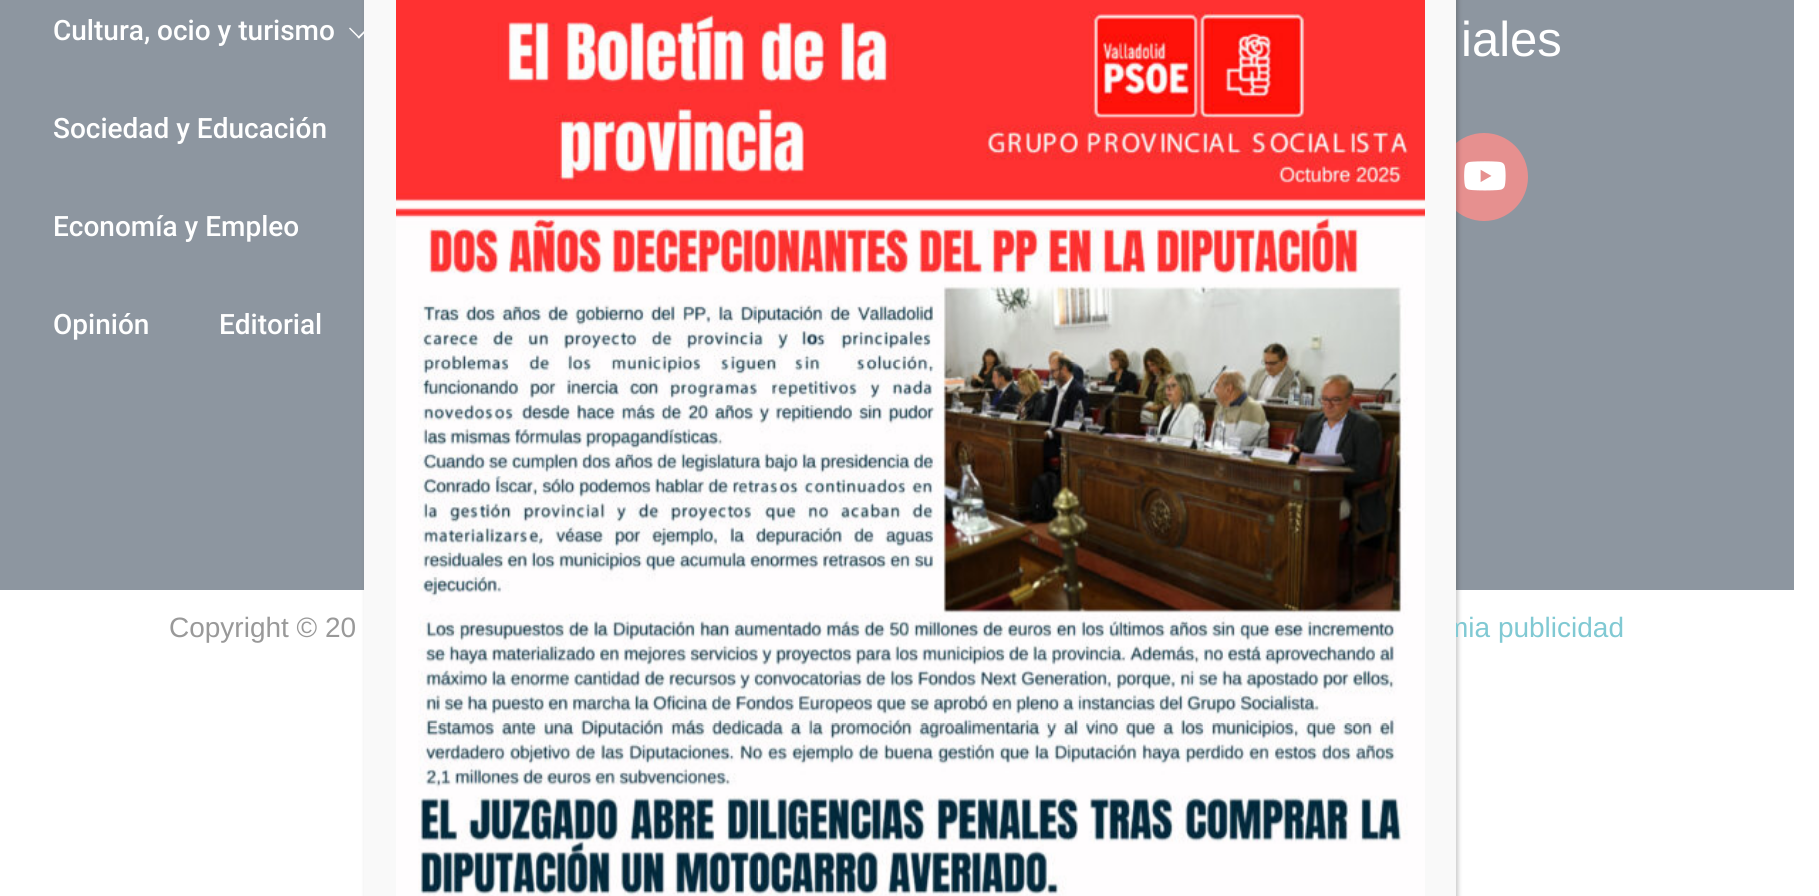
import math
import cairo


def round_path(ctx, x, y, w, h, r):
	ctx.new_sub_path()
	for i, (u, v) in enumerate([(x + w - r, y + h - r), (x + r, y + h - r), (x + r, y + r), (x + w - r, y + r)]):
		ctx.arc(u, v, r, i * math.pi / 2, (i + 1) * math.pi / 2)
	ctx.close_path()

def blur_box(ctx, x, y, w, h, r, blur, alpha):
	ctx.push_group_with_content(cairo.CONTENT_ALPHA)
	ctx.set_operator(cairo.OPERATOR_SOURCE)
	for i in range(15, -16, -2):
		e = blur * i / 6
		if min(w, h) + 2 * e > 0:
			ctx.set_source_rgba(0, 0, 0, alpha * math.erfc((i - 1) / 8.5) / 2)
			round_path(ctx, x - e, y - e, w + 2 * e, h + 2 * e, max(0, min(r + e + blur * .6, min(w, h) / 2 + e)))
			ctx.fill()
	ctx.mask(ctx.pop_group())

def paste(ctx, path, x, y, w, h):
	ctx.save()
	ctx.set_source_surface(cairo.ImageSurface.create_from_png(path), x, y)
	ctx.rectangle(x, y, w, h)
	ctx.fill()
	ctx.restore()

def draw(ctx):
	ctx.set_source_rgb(1, 1, 1)
	ctx.paint()
	ctx.set_source_rgb(0.553, 0.588, 0.627)
	ctx.rectangle(0, 0, 1794, 590)
	ctx.fill()
	ctx.set_source_rgb(1, 1, 1)
	ctx.new_path()
	ctx.move_to(369, 28.5)
	ctx.line_to(359, 38.5)
	ctx.line_to(357.5, 37.5)
	ctx.line_to(367.5, 27.5)
	ctx.close_path()
	ctx.fill()
	ctx.new_path()
	ctx.move_to(360, 37.5)
	ctx.line_to(359, 38.5)
	ctx.line_to(349, 28.5)
	ctx.line_to(350, 27.5)
	ctx.close_path()
	ctx.fill()
	ctx.set_source_rgb(0.902, 0.565, 0.561)
	ctx.arc(1484, 177, 44, 0, 2 * math.pi)
	ctx.fill()
	paste(ctx, 'media/2.png', 1464, 161, 42, 30)
	ctx.set_source_rgb(0.008, 0.008, 0.008)
	blur_box(ctx, 366, -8, 1092, 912, 0, 2.5, 0.23)
	ctx.select_font_face('Liberation Sans')
	ctx.set_font_size(28)
	ctx.set_source_rgb(0.502, 0.788, 0.827)
	ctx.move_to(1445, 637)
	ctx.show_text('mia publicidad')
	ctx.set_source_rgb(0.976, 0.976, 0.976)
	ctx.rectangle(364, 0, 1092, 896)
	ctx.fill()
	paste(ctx, 'media/1.png', 396, 0, 1029, 896)
	ctx.select_font_face('Roboto Medium')
	ctx.set_source_rgb(1, 1, 1)
	for x, y, s in [
		(53, 40, 'Cultura, ocio y turismo'),
		(53, 138, 'Sociedad y Educación'),
		(53, 236, 'Economía y Empleo'),
		(53, 334, 'Opinión'),
		(219, 334, 'Editorial'),
	]:
		ctx.move_to(x, y)
		ctx.show_text(s)
	ctx.select_font_face('Liberation Sans')
	ctx.set_font_size(49)
	ctx.move_to(1461, 56)
	ctx.show_text('iales')
	ctx.set_font_size(28)
	ctx.set_source_rgb(0.6, 0.6, 0.6)
	ctx.move_to(169, 637)
	ctx.show_text('Copyright © 20')


surface = cairo.ImageSurface(cairo.FORMAT_RGB24, 1819, 896)
ctx = cairo.Context(surface)
options = cairo.FontOptions()
options.set_hint_metrics(cairo.HINT_METRICS_OFF)
options.set_hint_style(cairo.HINT_STYLE_NONE)
ctx.set_font_options(options)
ctx.set_miter_limit(4)
draw(ctx)
surface.write_to_png('image.png')
